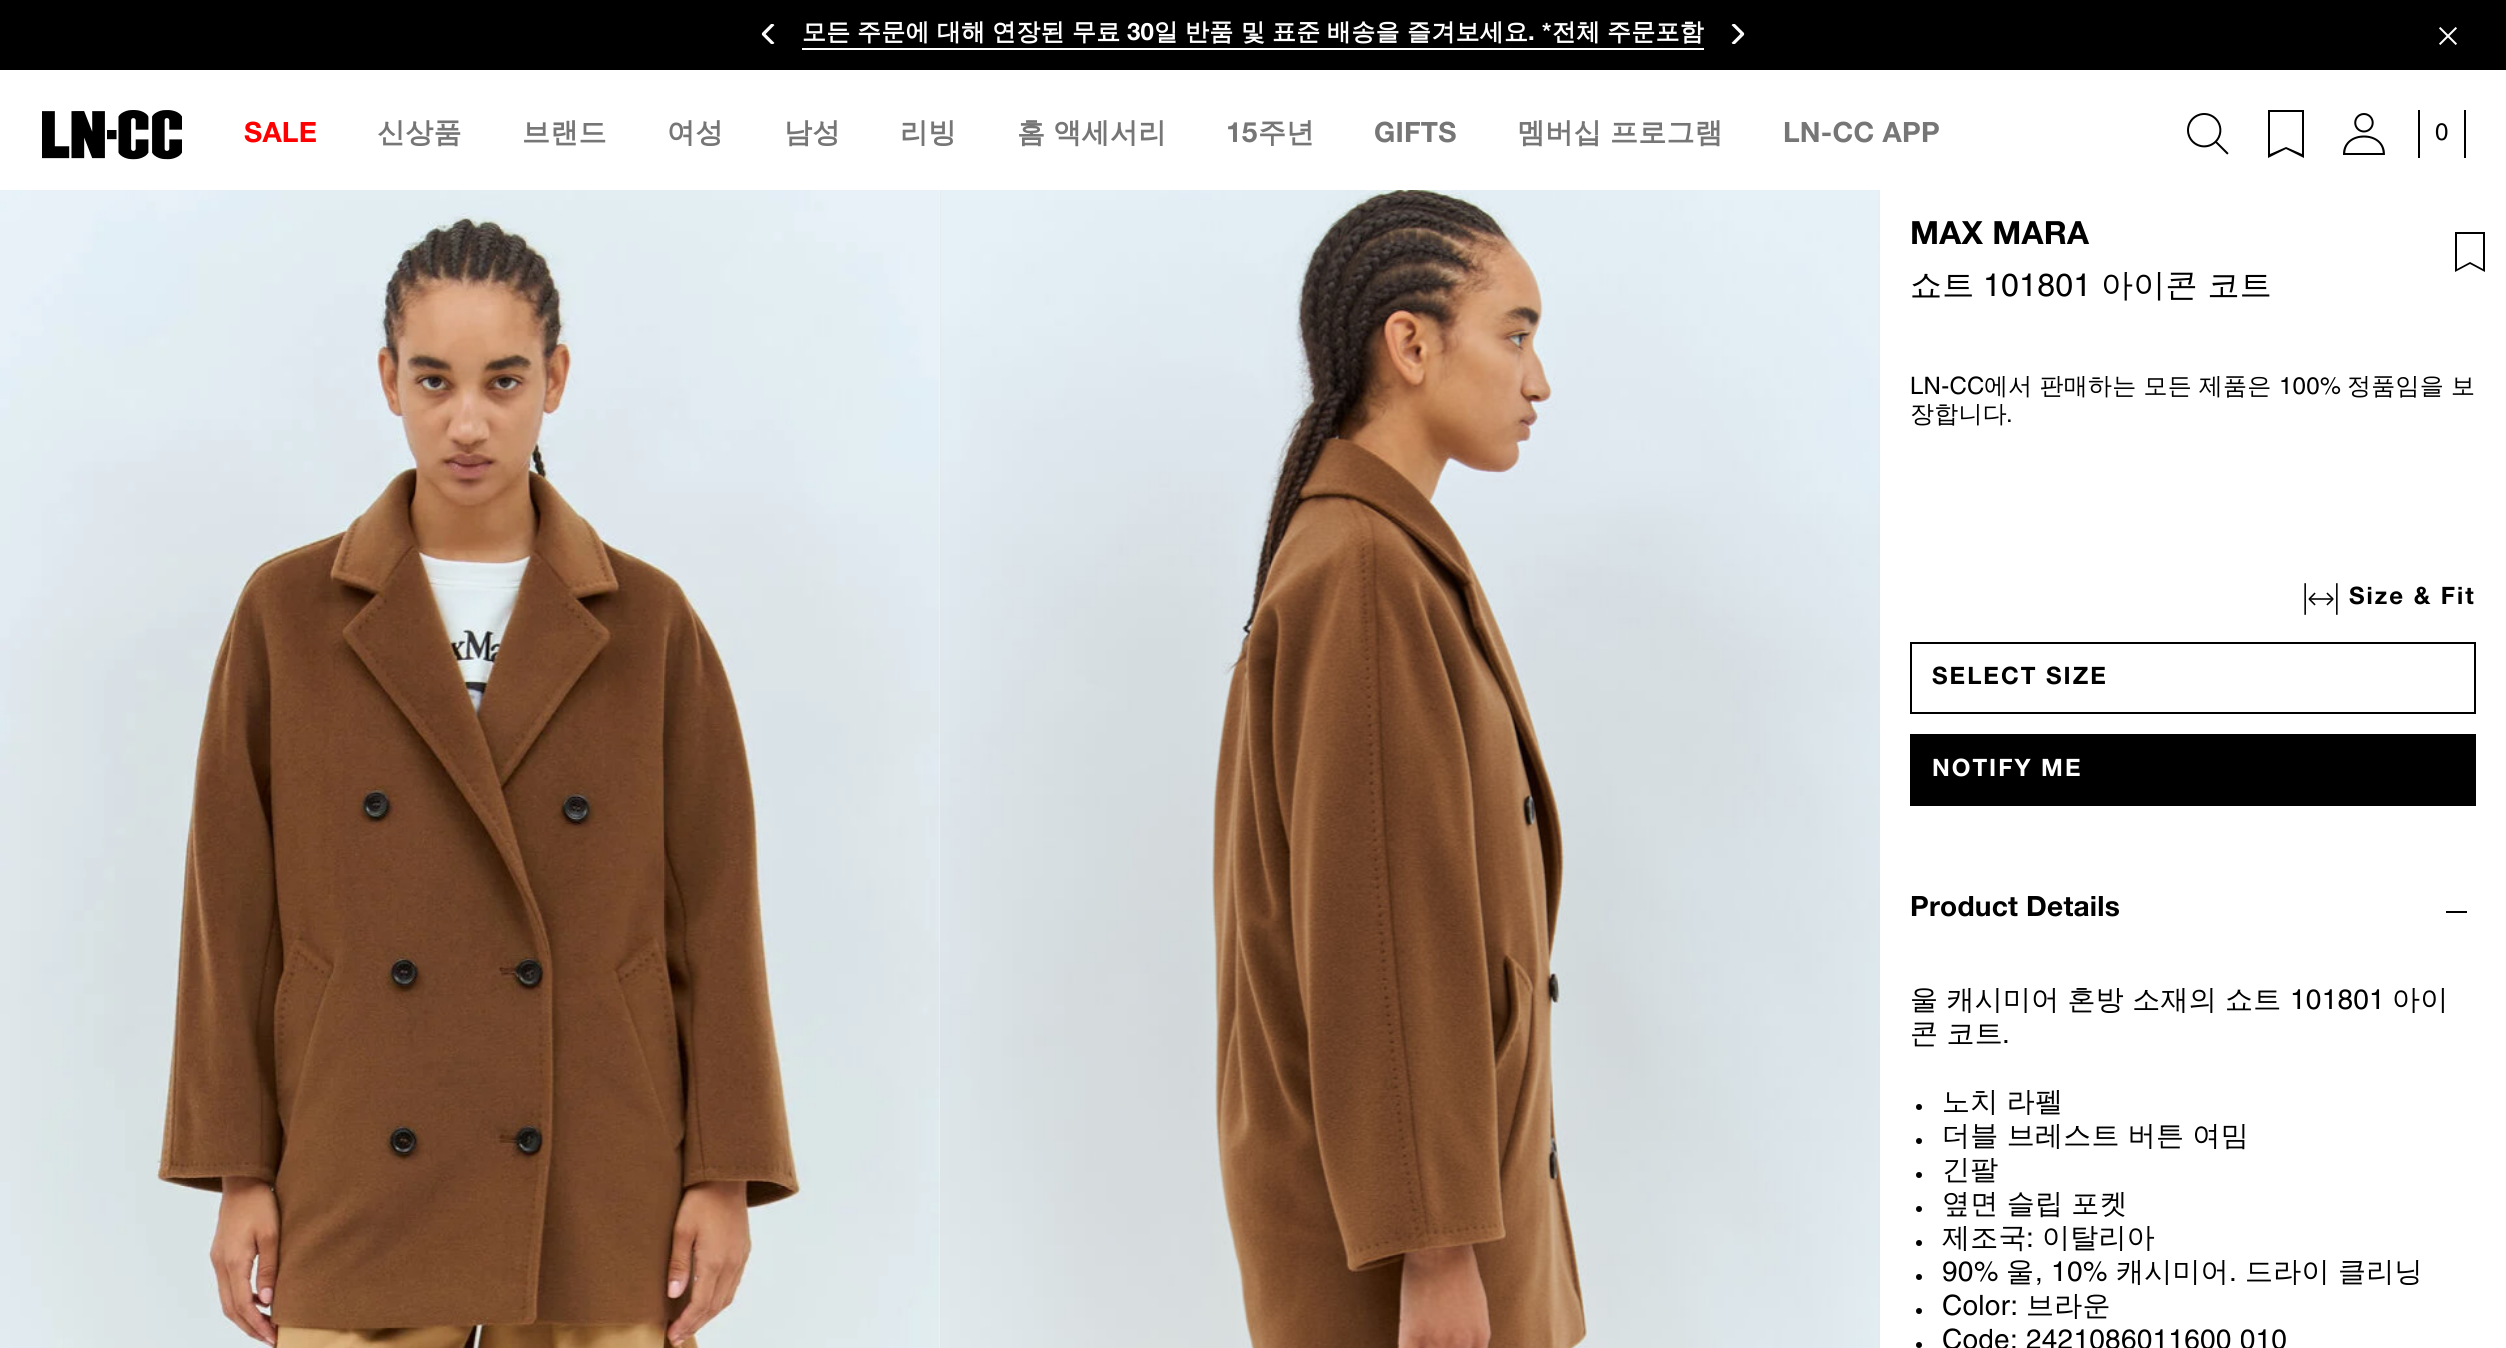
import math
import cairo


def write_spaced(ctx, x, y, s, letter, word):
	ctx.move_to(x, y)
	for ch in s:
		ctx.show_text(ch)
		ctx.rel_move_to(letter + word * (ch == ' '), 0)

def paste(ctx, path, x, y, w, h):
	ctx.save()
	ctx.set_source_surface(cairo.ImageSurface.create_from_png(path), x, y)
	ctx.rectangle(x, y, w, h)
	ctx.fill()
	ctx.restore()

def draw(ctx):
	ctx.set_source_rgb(1, 1, 1)
	ctx.paint()
	ctx.set_source_rgb(0, 0, 0)
	ctx.rectangle(0, 0, 2506, 70)
	ctx.fill()
	paste(ctx, 'media/1.png', 761, 24, 14, 20)
	ctx.select_font_face('WenQuanYi Zen Hei', cairo.FONT_SLANT_NORMAL, cairo.FONT_WEIGHT_BOLD)
	ctx.set_font_size(24)
	ctx.set_source_rgb(1, 1, 1)
	for x, y, s in [
		(802, 40, '모든'),
		(857, 40, '주문에'),
		(937, 40, '대해'),
		(992, 40, '연장된'),
		(1072, 40, '무료'),
	]:
		write_spaced(ctx, x, y, s, 0.25, 0)
	ctx.select_font_face('Helvetica Neue', cairo.FONT_SLANT_NORMAL, cairo.FONT_WEIGHT_BOLD)
	write_spaced(ctx, 1127, 40, '30', 0.25, 0)
	ctx.select_font_face('WenQuanYi Zen Hei', cairo.FONT_SLANT_NORMAL, cairo.FONT_WEIGHT_BOLD)
	for x, y, s in [
		(1154, 40, '일'),
		(1185, 40, '반품'),
		(1241, 40, '및'),
		(1272, 40, '표준'),
		(1327, 40, '배송을'),
		(1407, 40, '즐겨보세요'),
	]:
		write_spaced(ctx, x, y, s, 0.25, 0)
	ctx.select_font_face('Helvetica Neue', cairo.FONT_SLANT_NORMAL, cairo.FONT_WEIGHT_BOLD)
	write_spaced(ctx, 1528, 40, '. *', 0.25, 0)
	ctx.select_font_face('WenQuanYi Zen Hei', cairo.FONT_SLANT_NORMAL, cairo.FONT_WEIGHT_BOLD)
	write_spaced(ctx, 1552, 40, '전체', 0.25, 0)
	write_spaced(ctx, 1607, 40, '주문포함', 0.25, 0)
	ctx.rectangle(802, 48, 902, 2)
	ctx.fill()
	paste(ctx, 'media/2.png', 1731, 24, 14, 20)
	paste(ctx, 'media/3.png', 2439, 27, 18, 18)
	paste(ctx, 'media/4.png', 42, 110, 140, 50)
	ctx.select_font_face('Helvetica Neue', cairo.FONT_SLANT_NORMAL, cairo.FONT_WEIGHT_BOLD)
	ctx.set_font_size(28)
	ctx.set_source_rgb(1, 0, 0)
	write_spaced(ctx, 244, 142, 'SALE', 0.25, 0)
	ctx.select_font_face('WenQuanYi Zen Hei', cairo.FONT_SLANT_NORMAL, cairo.FONT_WEIGHT_BOLD)
	ctx.set_source_rgb(0.463, 0.463, 0.463)
	for x, y, s in [
		(377, 142, '신상품'),
		(522, 142, '브랜드'),
		(667, 142, '여성'),
		(784, 142, '남성'),
		(900, 142, '리빙'),
	]:
		write_spaced(ctx, x, y, s, 0.25, 0)
	write_spaced(ctx, 1017, 142, '홈 액세서리', 0.25, -0.5)
	ctx.select_font_face('Helvetica Neue', cairo.FONT_SLANT_NORMAL, cairo.FONT_WEIGHT_BOLD)
	write_spaced(ctx, 1226, 142, '15', 0.25, 0)
	ctx.select_font_face('WenQuanYi Zen Hei', cairo.FONT_SLANT_NORMAL, cairo.FONT_WEIGHT_BOLD)
	write_spaced(ctx, 1258, 142, '주년', 0.25, 0)
	ctx.select_font_face('Helvetica Neue', cairo.FONT_SLANT_NORMAL, cairo.FONT_WEIGHT_BOLD)
	write_spaced(ctx, 1374, 142, 'GIFTS', 0.25, 0)
	ctx.select_font_face('WenQuanYi Zen Hei', cairo.FONT_SLANT_NORMAL, cairo.FONT_WEIGHT_BOLD)
	write_spaced(ctx, 1517, 142, '멤버십 프로그램', 0.25, -0.5)
	ctx.select_font_face('Helvetica Neue', cairo.FONT_SLANT_NORMAL, cairo.FONT_WEIGHT_BOLD)
	write_spaced(ctx, 1783, 142, 'LN-CC APP', 0.25, 0)
	paste(ctx, 'media/5.png', 2187, 113, 42, 42)
	ctx.set_source_rgb(0, 0, 0)
	ctx.new_path()
	ctx.move_to(2304, 158)
	ctx.line_to(2286, 149)
	ctx.line_to(2268, 158)
	ctx.line_to(2268, 110)
	ctx.line_to(2304, 110)
	ctx.close_path()
	ctx.move_to(2270, 112)
	ctx.line_to(2270, 154)
	ctx.line_to(2286, 147)
	ctx.line_to(2302, 154)
	ctx.line_to(2302, 112)
	ctx.close_path()
	ctx.fill()
	paste(ctx, 'media/6.png', 2343, 113, 42, 42)
	ctx.rectangle(2464, 110, 2, 48)
	ctx.fill()
	ctx.rectangle(2418, 110, 2, 48)
	ctx.fill()
	ctx.select_font_face('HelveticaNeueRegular')
	ctx.set_font_size(24)
	write_spaced(ctx, 2435, 140, '0', 0.25, 0)
	paste(ctx, 'media/7.png', 0, 190, 940, 1158)
	ctx.set_source_rgb(0.886, 0.886, 0.878)
	ctx.rectangle(940, 190, 940, 1158)
	ctx.fill()
	paste(ctx, 'media/8.png', 940, 190, 940, 1158)
	ctx.select_font_face('Helvetica Neue', cairo.FONT_SLANT_NORMAL, cairo.FONT_WEIGHT_BOLD)
	ctx.set_font_size(32)
	ctx.set_source_rgb(0, 0, 0)
	write_spaced(ctx, 1910, 244, 'MAX MARA', 0.25, 0)
	ctx.select_font_face('WenQuanYi Zen Hei Medium')
	write_spaced(ctx, 1910, 296, '쇼트', 0.25, 0)
	ctx.select_font_face('HelveticaNeueRegular')
	write_spaced(ctx, 1983, 296, '101801', 0.25, 0)
	ctx.select_font_face('WenQuanYi Zen Hei Medium')
	write_spaced(ctx, 2101, 296, '아이콘 코트', 0.25, 0)
	ctx.select_font_face('HelveticaNeueRegular')
	ctx.set_font_size(24)
	write_spaced(ctx, 1910, 394, 'LN-CC', 0.25, 0)
	ctx.select_font_face('WenQuanYi Zen Hei Medium')
	write_spaced(ctx, 1984, 394, '에서 판매하는 모든 제품은', 0.25, -0.5)
	ctx.select_font_face('HelveticaNeueRegular')
	write_spaced(ctx, 2279, 394, '100%', 0.25, 0)
	ctx.select_font_face('WenQuanYi Zen Hei Medium')
	write_spaced(ctx, 2347, 394, '정품임을 보', 0.25, -0.5)
	write_spaced(ctx, 1910, 422, '장합니다', 0.25, 0)
	ctx.select_font_face('HelveticaNeueRegular')
	write_spaced(ctx, 2006, 422, '.', 0.25, 0)
	ctx.new_path()
	ctx.move_to(2485, 272)
	ctx.line_to(2470, 264)
	ctx.line_to(2455, 272)
	ctx.line_to(2455, 232)
	ctx.line_to(2485, 232)
	ctx.close_path()
	ctx.move_to(2457, 234)
	ctx.line_to(2457, 269)
	ctx.line_to(2470, 262)
	ctx.line_to(2483, 269)
	ctx.line_to(2483, 234)
	ctx.close_path()
	ctx.fill()
	paste(ctx, 'media/9.png', 2304, 583, 34, 32)
	ctx.select_font_face('Helvetica Neue', cairo.FONT_SLANT_NORMAL, cairo.FONT_WEIGHT_BOLD)
	write_spaced(ctx, 2349, 604, 'Size & Fit', 2, 0)
	ctx.rectangle(1911, 643, 564, 70)
	ctx.stroke()
	write_spaced(ctx, 1932, 684, 'SELECT SIZE', 2, 0)
	ctx.rectangle(1910, 734, 566, 72)
	ctx.fill()
	ctx.set_source_rgb(1, 1, 1)
	write_spaced(ctx, 1932, 776, 'NOTIFY ME', 2, 0)
	ctx.set_font_size(28)
	ctx.set_source_rgb(0, 0, 0)
	write_spaced(ctx, 1910, 916, 'Product Details', 0.25, 0)
	ctx.rectangle(2446, 911, 21, 2)
	ctx.fill()
	ctx.select_font_face('WenQuanYi Zen Hei Medium')
	write_spaced(ctx, 1910, 1009, '울 캐시미어 혼방 소재의 쇼트', 0.25, -0.5)
	ctx.select_font_face('HelveticaNeueRegular')
	write_spaced(ctx, 2290, 1009, '101801', 0.25, 0)
	ctx.select_font_face('WenQuanYi Zen Hei Medium')
	write_spaced(ctx, 2392, 1009, '아이', 0.25, 0)
	write_spaced(ctx, 1910, 1043, '콘 코트', 0.25, -0.5)
	ctx.select_font_face('HelveticaNeueRegular')
	write_spaced(ctx, 2002, 1043, '.', 0.25, 0)
	ctx.new_path()
	ctx.arc(1919, 1107, 3, 0, 2 * math.pi)
	ctx.fill()
	ctx.select_font_face('WenQuanYi Zen Hei Medium')
	write_spaced(ctx, 1942, 1111, '노치 라펠', 0.25, -0.5)
	ctx.new_path()
	ctx.arc(1919, 1141, 3, 0, 2 * math.pi)
	ctx.fill()
	write_spaced(ctx, 1942, 1145, '더블 브레스트 버튼 여밈', 0.25, -0.5)
	ctx.new_path()
	ctx.arc(1919, 1175, 3, 0, 2 * math.pi)
	ctx.fill()
	write_spaced(ctx, 1942, 1179, '긴팔', 0.25, 0)
	ctx.new_path()
	ctx.arc(1919, 1209, 3, 0, 2 * math.pi)
	ctx.fill()
	write_spaced(ctx, 1942, 1213, '옆면 슬립 포켓', 0.25, -0.5)
	ctx.new_path()
	ctx.arc(1919, 1243, 3, 0, 2 * math.pi)
	ctx.fill()
	write_spaced(ctx, 1942, 1247, '제조국', 0.25, 0)
	ctx.select_font_face('HelveticaNeueRegular')
	write_spaced(ctx, 2026, 1247, ':', 0.25, 0)
	ctx.select_font_face('WenQuanYi Zen Hei Medium')
	write_spaced(ctx, 2042, 1247, '이탈리아', 0.25, 0)
	ctx.new_path()
	ctx.arc(1919, 1277, 3, 0, 2 * math.pi)
	ctx.fill()
	ctx.select_font_face('HelveticaNeueRegular')
	write_spaced(ctx, 1942, 1281, '90%', 0.25, 0)
	ctx.select_font_face('WenQuanYi Zen Hei Medium')
	write_spaced(ctx, 2006, 1281, '울', 0.25, 0)
	ctx.select_font_face('HelveticaNeueRegular')
	write_spaced(ctx, 2035, 1281, ', 10%', 0.25, 0)
	ctx.select_font_face('WenQuanYi Zen Hei Medium')
	write_spaced(ctx, 2116, 1281, '캐시미어', 0.25, 0)
	ctx.select_font_face('HelveticaNeueRegular')
	write_spaced(ctx, 2229, 1281, '.', 0.25, 0)
	ctx.select_font_face('WenQuanYi Zen Hei Medium')
	write_spaced(ctx, 2245, 1281, '드라이', 0.25, 0)
	write_spaced(ctx, 2338, 1281, '클리닝', 0.25, 0)
	ctx.new_path()
	ctx.arc(1919, 1311, 3, 0, 2 * math.pi)
	ctx.fill()
	ctx.select_font_face('HelveticaNeueRegular')
	write_spaced(ctx, 1942, 1315, 'Color:', 0.25, 0)
	ctx.select_font_face('WenQuanYi Zen Hei Medium')
	write_spaced(ctx, 2026, 1315, '브라운', 0.25, 0)
	ctx.new_path()
	ctx.arc(1919, 1345, 3, 0, 2 * math.pi)
	ctx.fill()
	ctx.select_font_face('HelveticaNeueRegular')
	write_spaced(ctx, 1942, 1349, 'Code: 2421086011600 010', 0.25, 0)


surface = cairo.ImageSurface(cairo.FORMAT_RGB24, 2506, 1348)
ctx = cairo.Context(surface)
options = cairo.FontOptions()
options.set_hint_metrics(cairo.HINT_METRICS_OFF)
options.set_hint_style(cairo.HINT_STYLE_NONE)
ctx.set_font_options(options)
ctx.set_miter_limit(4)
draw(ctx)
surface.write_to_png('image.png')
